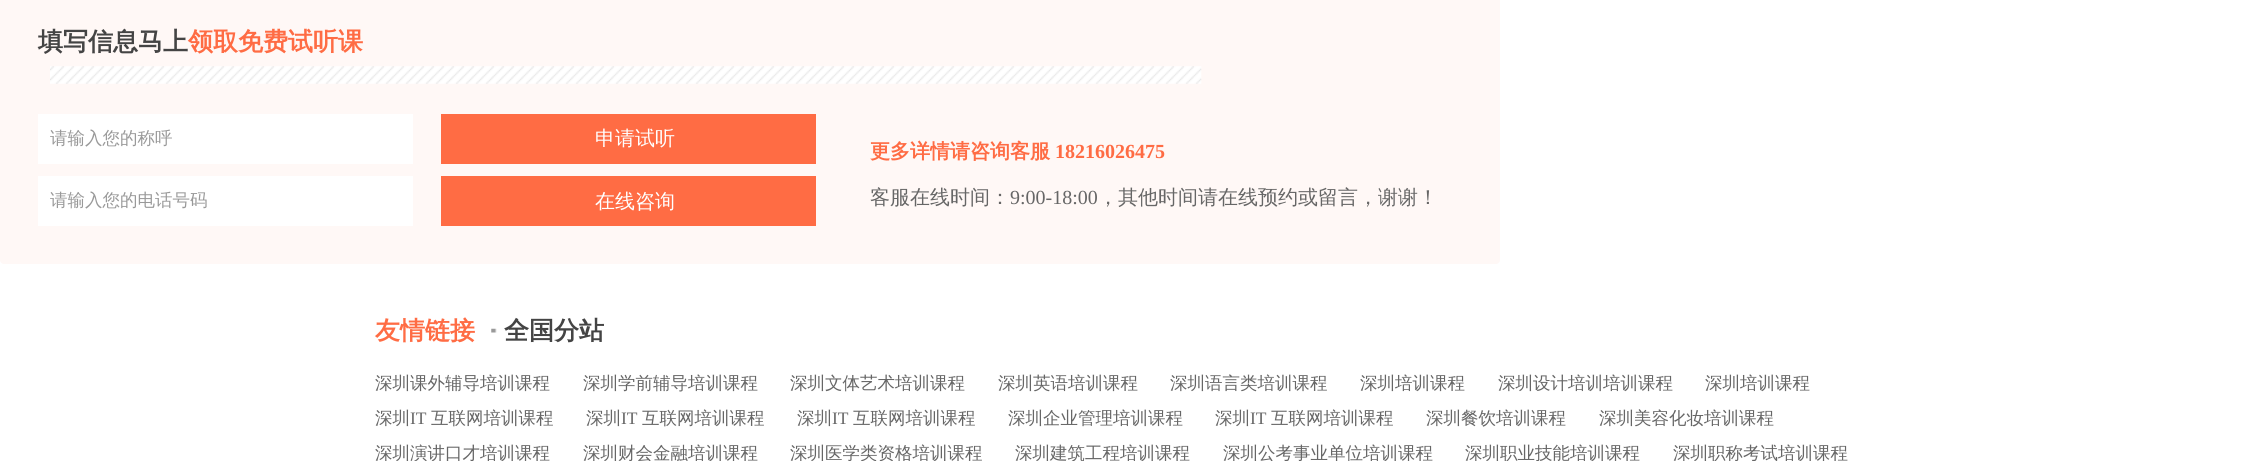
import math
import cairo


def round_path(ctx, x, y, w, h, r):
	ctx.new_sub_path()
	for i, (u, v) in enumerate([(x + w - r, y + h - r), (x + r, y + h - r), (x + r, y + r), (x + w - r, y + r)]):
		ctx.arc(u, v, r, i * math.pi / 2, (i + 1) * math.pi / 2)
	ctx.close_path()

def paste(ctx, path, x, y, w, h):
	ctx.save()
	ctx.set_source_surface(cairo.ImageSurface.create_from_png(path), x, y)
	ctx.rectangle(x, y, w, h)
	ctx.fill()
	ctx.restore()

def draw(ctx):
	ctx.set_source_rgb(1, 1, 1)
	ctx.paint()
	ctx.set_source_rgb(1, 0.969, 0.961)
	round_path(ctx, 0, -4, 1500, 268, 4)
	ctx.fill()
	ctx.select_font_face('WenQuanYi Zen Hei', cairo.FONT_SLANT_NORMAL, cairo.FONT_WEIGHT_BOLD)
	ctx.set_font_size(25)
	ctx.set_source_rgb(0.267, 0.267, 0.267)
	ctx.move_to(38, 50)
	ctx.show_text('填写信息马上')
	ctx.set_source_rgb(1, 0.424, 0.267)
	ctx.move_to(188, 50)
	ctx.show_text('领取免费试听课')
	paste(ctx, 'media/1.png', 50, 66, 1152, 18)
	ctx.set_source_rgb(1, 1, 1)
	ctx.rectangle(38, 114, 375, 50)
	ctx.fill()
	ctx.select_font_face('WenQuanYi Zen Hei Medium')
	ctx.set_font_size(17.5)
	ctx.set_source_rgb(0.6, 0.6, 0.6)
	ctx.move_to(50, 144)
	ctx.show_text('请输入您的称呼')
	ctx.set_source_rgb(1, 0.424, 0.267)
	ctx.rectangle(441, 114, 375, 50)
	ctx.fill()
	ctx.set_font_size(20)
	ctx.set_source_rgb(1, 1, 1)
	ctx.move_to(595, 145)
	ctx.show_text('申请试听')
	ctx.rectangle(38, 176, 375, 50)
	ctx.fill()
	ctx.set_font_size(17.5)
	ctx.set_source_rgb(0.6, 0.6, 0.6)
	ctx.move_to(50, 206)
	ctx.show_text('请输入您的电话号码')
	ctx.set_source_rgb(1, 0.424, 0.267)
	ctx.rectangle(441, 176, 375, 50)
	ctx.fill()
	ctx.set_font_size(20)
	ctx.set_source_rgb(1, 1, 1)
	ctx.move_to(595, 208)
	ctx.show_text('在线咨询')
	ctx.select_font_face('WenQuanYi Zen Hei', cairo.FONT_SLANT_NORMAL, cairo.FONT_WEIGHT_BOLD)
	ctx.set_source_rgb(1, 0.424, 0.267)
	ctx.move_to(870, 158)
	ctx.show_text('更多详情请咨询客服')
	ctx.select_font_face('Liberation Serif', cairo.FONT_SLANT_NORMAL, cairo.FONT_WEIGHT_BOLD)
	ctx.move_to(1055, 158)
	ctx.show_text('18216026475')
	ctx.select_font_face('WenQuanYi Zen Hei Medium')
	ctx.set_source_rgb(0.4, 0.4, 0.4)
	ctx.move_to(870, 204)
	ctx.show_text('客服在线时间：')
	ctx.select_font_face('Liberation Serif')
	ctx.move_to(1010, 204)
	ctx.show_text('9:00-18:00')
	ctx.select_font_face('WenQuanYi Zen Hei Medium')
	ctx.move_to(1098, 204)
	ctx.show_text('，其他时间请在线预约或留言，谢谢！')
	ctx.select_font_face('WenQuanYi Zen Hei', cairo.FONT_SLANT_NORMAL, cairo.FONT_WEIGHT_BOLD)
	ctx.set_font_size(25)
	ctx.set_source_rgb(1, 0.424, 0.267)
	ctx.move_to(375, 339)
	ctx.show_text('友情链接')
	paste(ctx, 'media/2.png', 491, 328, 6, 5)
	ctx.set_source_rgb(0.267, 0.267, 0.267)
	ctx.move_to(504, 339)
	ctx.show_text('全国分站')
	ctx.select_font_face('WenQuanYi Zen Hei Medium')
	ctx.set_font_size(17.5)
	ctx.set_source_rgb(0.4, 0.4, 0.4)
	for x, y, s in [
		(375, 389, '深圳课外辅导培训课程'),
		(583, 389, '深圳学前辅导培训课程'),
		(790, 389, '深圳文体艺术培训课程'),
		(998, 389, '深圳英语培训课程'),
		(1170, 389, '深圳语言类培训课程'),
		(1360, 389, '深圳培训课程'),
		(1498, 389, '深圳设计培训培训课程'),
		(1705, 389, '深圳培训课程'),
		(375, 424, '深圳'),
	]:
		ctx.move_to(x, y)
		ctx.show_text(s)
	ctx.select_font_face('Liberation Serif')
	ctx.move_to(410, 424)
	ctx.show_text('IT')
	ctx.select_font_face('WenQuanYi Zen Hei Medium')
	ctx.move_to(431, 424)
	ctx.show_text('互联网培训课程')
	ctx.move_to(586, 424)
	ctx.show_text('深圳')
	ctx.select_font_face('Liberation Serif')
	ctx.move_to(621, 424)
	ctx.show_text('IT')
	ctx.select_font_face('WenQuanYi Zen Hei Medium')
	ctx.move_to(642, 424)
	ctx.show_text('互联网培训课程')
	ctx.move_to(797, 424)
	ctx.show_text('深圳')
	ctx.select_font_face('Liberation Serif')
	ctx.move_to(832, 424)
	ctx.show_text('IT')
	ctx.select_font_face('WenQuanYi Zen Hei Medium')
	for x, y, s in [
		(853, 424, '互联网培训课程'),
		(1008, 424, '深圳企业管理培训课程'),
		(1215, 424, '深圳'),
	]:
		ctx.move_to(x, y)
		ctx.show_text(s)
	ctx.select_font_face('Liberation Serif')
	ctx.move_to(1250, 424)
	ctx.show_text('IT')
	ctx.select_font_face('WenQuanYi Zen Hei Medium')
	for x, y, s in [
		(1271, 424, '互联网培训课程'),
		(1426, 424, '深圳餐饮培训课程'),
		(1599, 424, '深圳美容化妆培训课程'),
		(375, 459, '深圳演讲口才培训课程'),
		(583, 459, '深圳财会金融培训课程'),
		(790, 459, '深圳医学类资格培训课程'),
		(1015, 459, '深圳建筑工程培训课程'),
		(1223, 459, '深圳公考事业单位培训课程'),
		(1465, 459, '深圳职业技能培训课程'),
		(1673, 459, '深圳职称考试培训课程'),
	]:
		ctx.move_to(x, y)
		ctx.show_text(s)


surface = cairo.ImageSurface(cairo.FORMAT_RGB24, 2249, 461)
ctx = cairo.Context(surface)
options = cairo.FontOptions()
options.set_hint_metrics(cairo.HINT_METRICS_OFF)
options.set_hint_style(cairo.HINT_STYLE_NONE)
ctx.set_font_options(options)
ctx.set_miter_limit(4)
draw(ctx)
surface.write_to_png('image.png')
